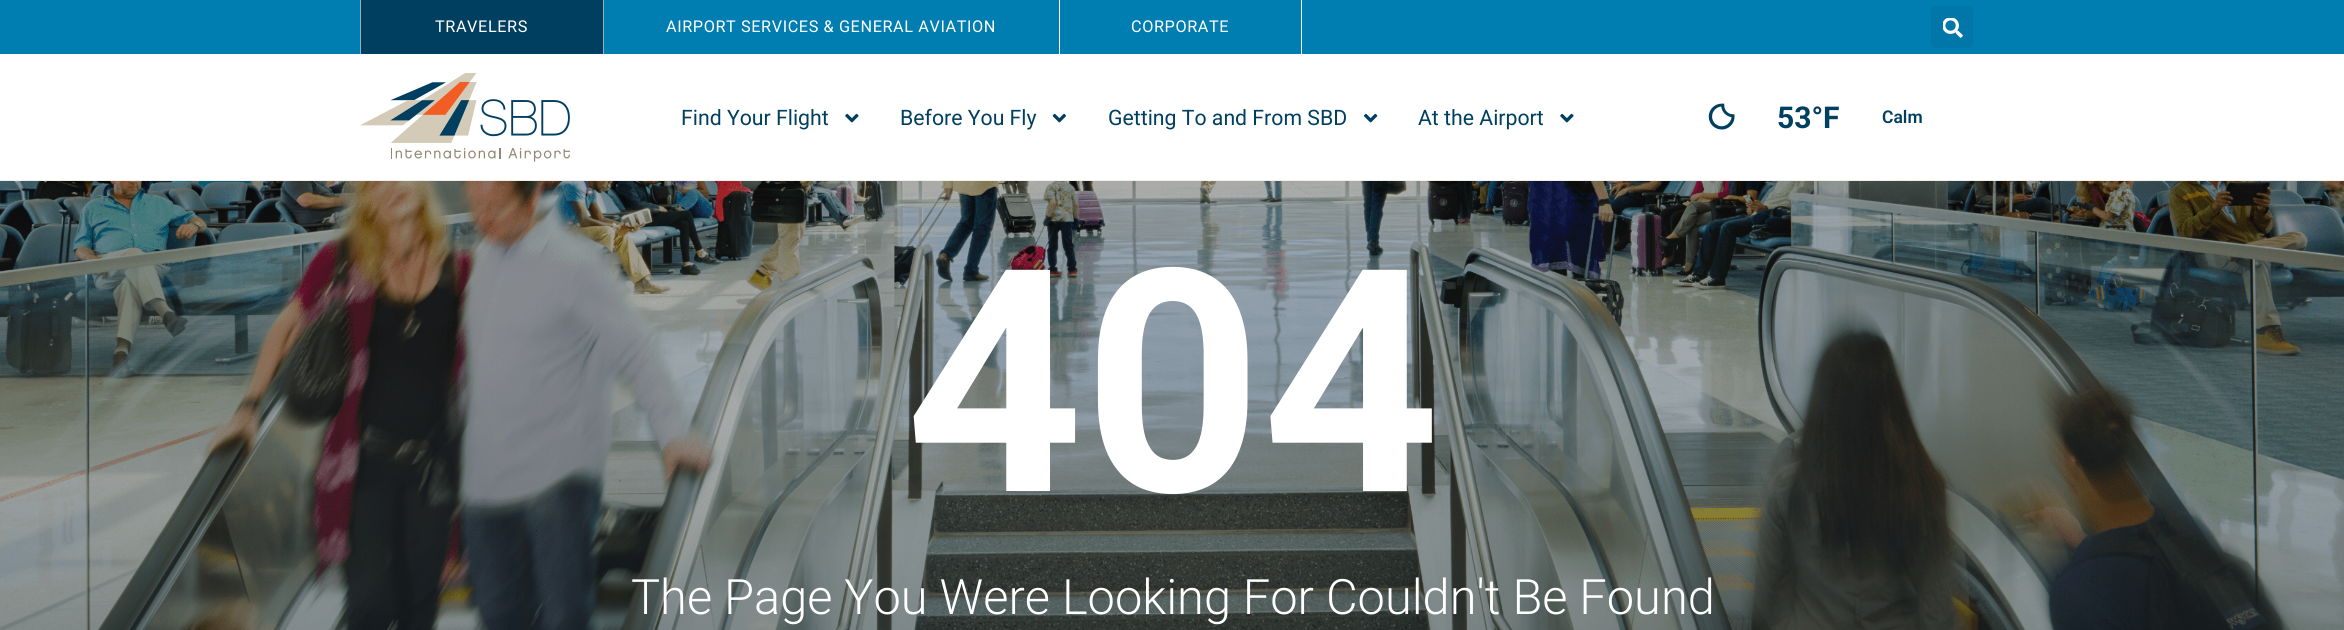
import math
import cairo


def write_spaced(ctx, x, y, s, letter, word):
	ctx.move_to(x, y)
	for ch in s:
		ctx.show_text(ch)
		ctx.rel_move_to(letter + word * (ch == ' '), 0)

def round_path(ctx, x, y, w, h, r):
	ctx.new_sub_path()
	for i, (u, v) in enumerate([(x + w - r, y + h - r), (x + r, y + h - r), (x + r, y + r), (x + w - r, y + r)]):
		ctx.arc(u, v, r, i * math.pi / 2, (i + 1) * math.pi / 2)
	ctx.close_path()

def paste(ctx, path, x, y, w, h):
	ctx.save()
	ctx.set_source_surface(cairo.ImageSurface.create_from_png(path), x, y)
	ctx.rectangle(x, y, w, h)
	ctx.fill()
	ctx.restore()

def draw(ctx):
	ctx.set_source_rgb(1, 1, 1)
	ctx.paint()
	ctx.set_source_rgb(0, 0.49, 0.694)
	ctx.rectangle(0, 0, 2344, 54)
	ctx.fill()
	ctx.set_source_rgb(0, 0.247, 0.373)
	ctx.rectangle(361, 0, 242, 54)
	ctx.fill()
	ctx.set_source_rgb(0.588, 0.69, 0.741)
	ctx.rectangle(603, 0, 1, 54)
	ctx.rectangle(360, 0, 1, 54)
	ctx.fill()
	ctx.select_font_face('Roboto')
	ctx.set_font_size(16.25)
	ctx.set_source_rgb(1, 1, 1)
	write_spaced(ctx, 435, 32, 'TRAVELERS', 0.6, 0)
	write_spaced(ctx, 666, 32, 'AIRPORT SERVICES & GENERAL AVIATION', 0.6, 0)
	ctx.rectangle(1301, 0, 1, 54)
	ctx.fill()
	ctx.rectangle(1059, 0, 1, 54)
	ctx.fill()
	write_spaced(ctx, 1131, 32, 'CORPORATE', 0.6, 0)
	ctx.set_source_rgb(0, 0.467, 0.659)
	round_path(ctx, 1931, 6, 42, 42, 4)
	ctx.fill()
	paste(ctx, 'media/1.png', 1943, 18, 20, 20)
	ctx.set_source_rgb(0.949, 0.937, 0.91)
	ctx.rectangle(0, 180, 2344, 1)
	ctx.fill()
	paste(ctx, 'media/2.png', 360, 73, 210, 89)
	ctx.set_font_size(21.25)
	ctx.set_source_rgb(0, 0.247, 0.373)
	ctx.move_to(681, 125)
	ctx.show_text('Find Your Flight')
	paste(ctx, 'media/3.png', 845, 113, 14, 10)
	ctx.move_to(900, 125)
	ctx.show_text('Before You Fly')
	paste(ctx, 'media/4.png', 1052, 113, 14, 10)
	ctx.move_to(1108, 125)
	ctx.show_text('Getting To and From SBD')
	paste(ctx, 'media/5.png', 1364, 113, 14, 10)
	ctx.move_to(1418, 125)
	ctx.show_text('At the Airport')
	paste(ctx, 'media/3.png', 1560, 113, 14, 10)
	paste(ctx, 'media/6.png', 1708, 103, 27, 27)
	ctx.select_font_face('Roboto', cairo.FONT_SLANT_NORMAL, cairo.FONT_WEIGHT_BOLD)
	ctx.set_font_size(30)
	ctx.move_to(1777, 128)
	ctx.show_text('53°F')
	ctx.select_font_face('Roboto SemiBold')
	ctx.set_font_size(17.5)
	ctx.move_to(1882, 123)
	ctx.show_text('Calm')
	paste(ctx, 'media/7.png', 0, 181, 2344, 449)
	ctx.select_font_face('Roboto', cairo.FONT_SLANT_NORMAL, cairo.FONT_WEIGHT_BOLD)
	ctx.set_font_size(311)
	ctx.set_source_rgb(1, 1, 1)
	ctx.move_to(905, 491)
	ctx.show_text('404')
	ctx.select_font_face('Roboto Light')
	ctx.set_font_size(48.75)
	ctx.move_to(631, 614)
	ctx.show_text('The Page You Were Looking For Couldn\'t Be Found')


surface = cairo.ImageSurface(cairo.FORMAT_RGB24, 2344, 630)
ctx = cairo.Context(surface)
options = cairo.FontOptions()
options.set_hint_metrics(cairo.HINT_METRICS_OFF)
options.set_hint_style(cairo.HINT_STYLE_NONE)
ctx.set_font_options(options)
ctx.set_miter_limit(4)
draw(ctx)
surface.write_to_png('image.png')
